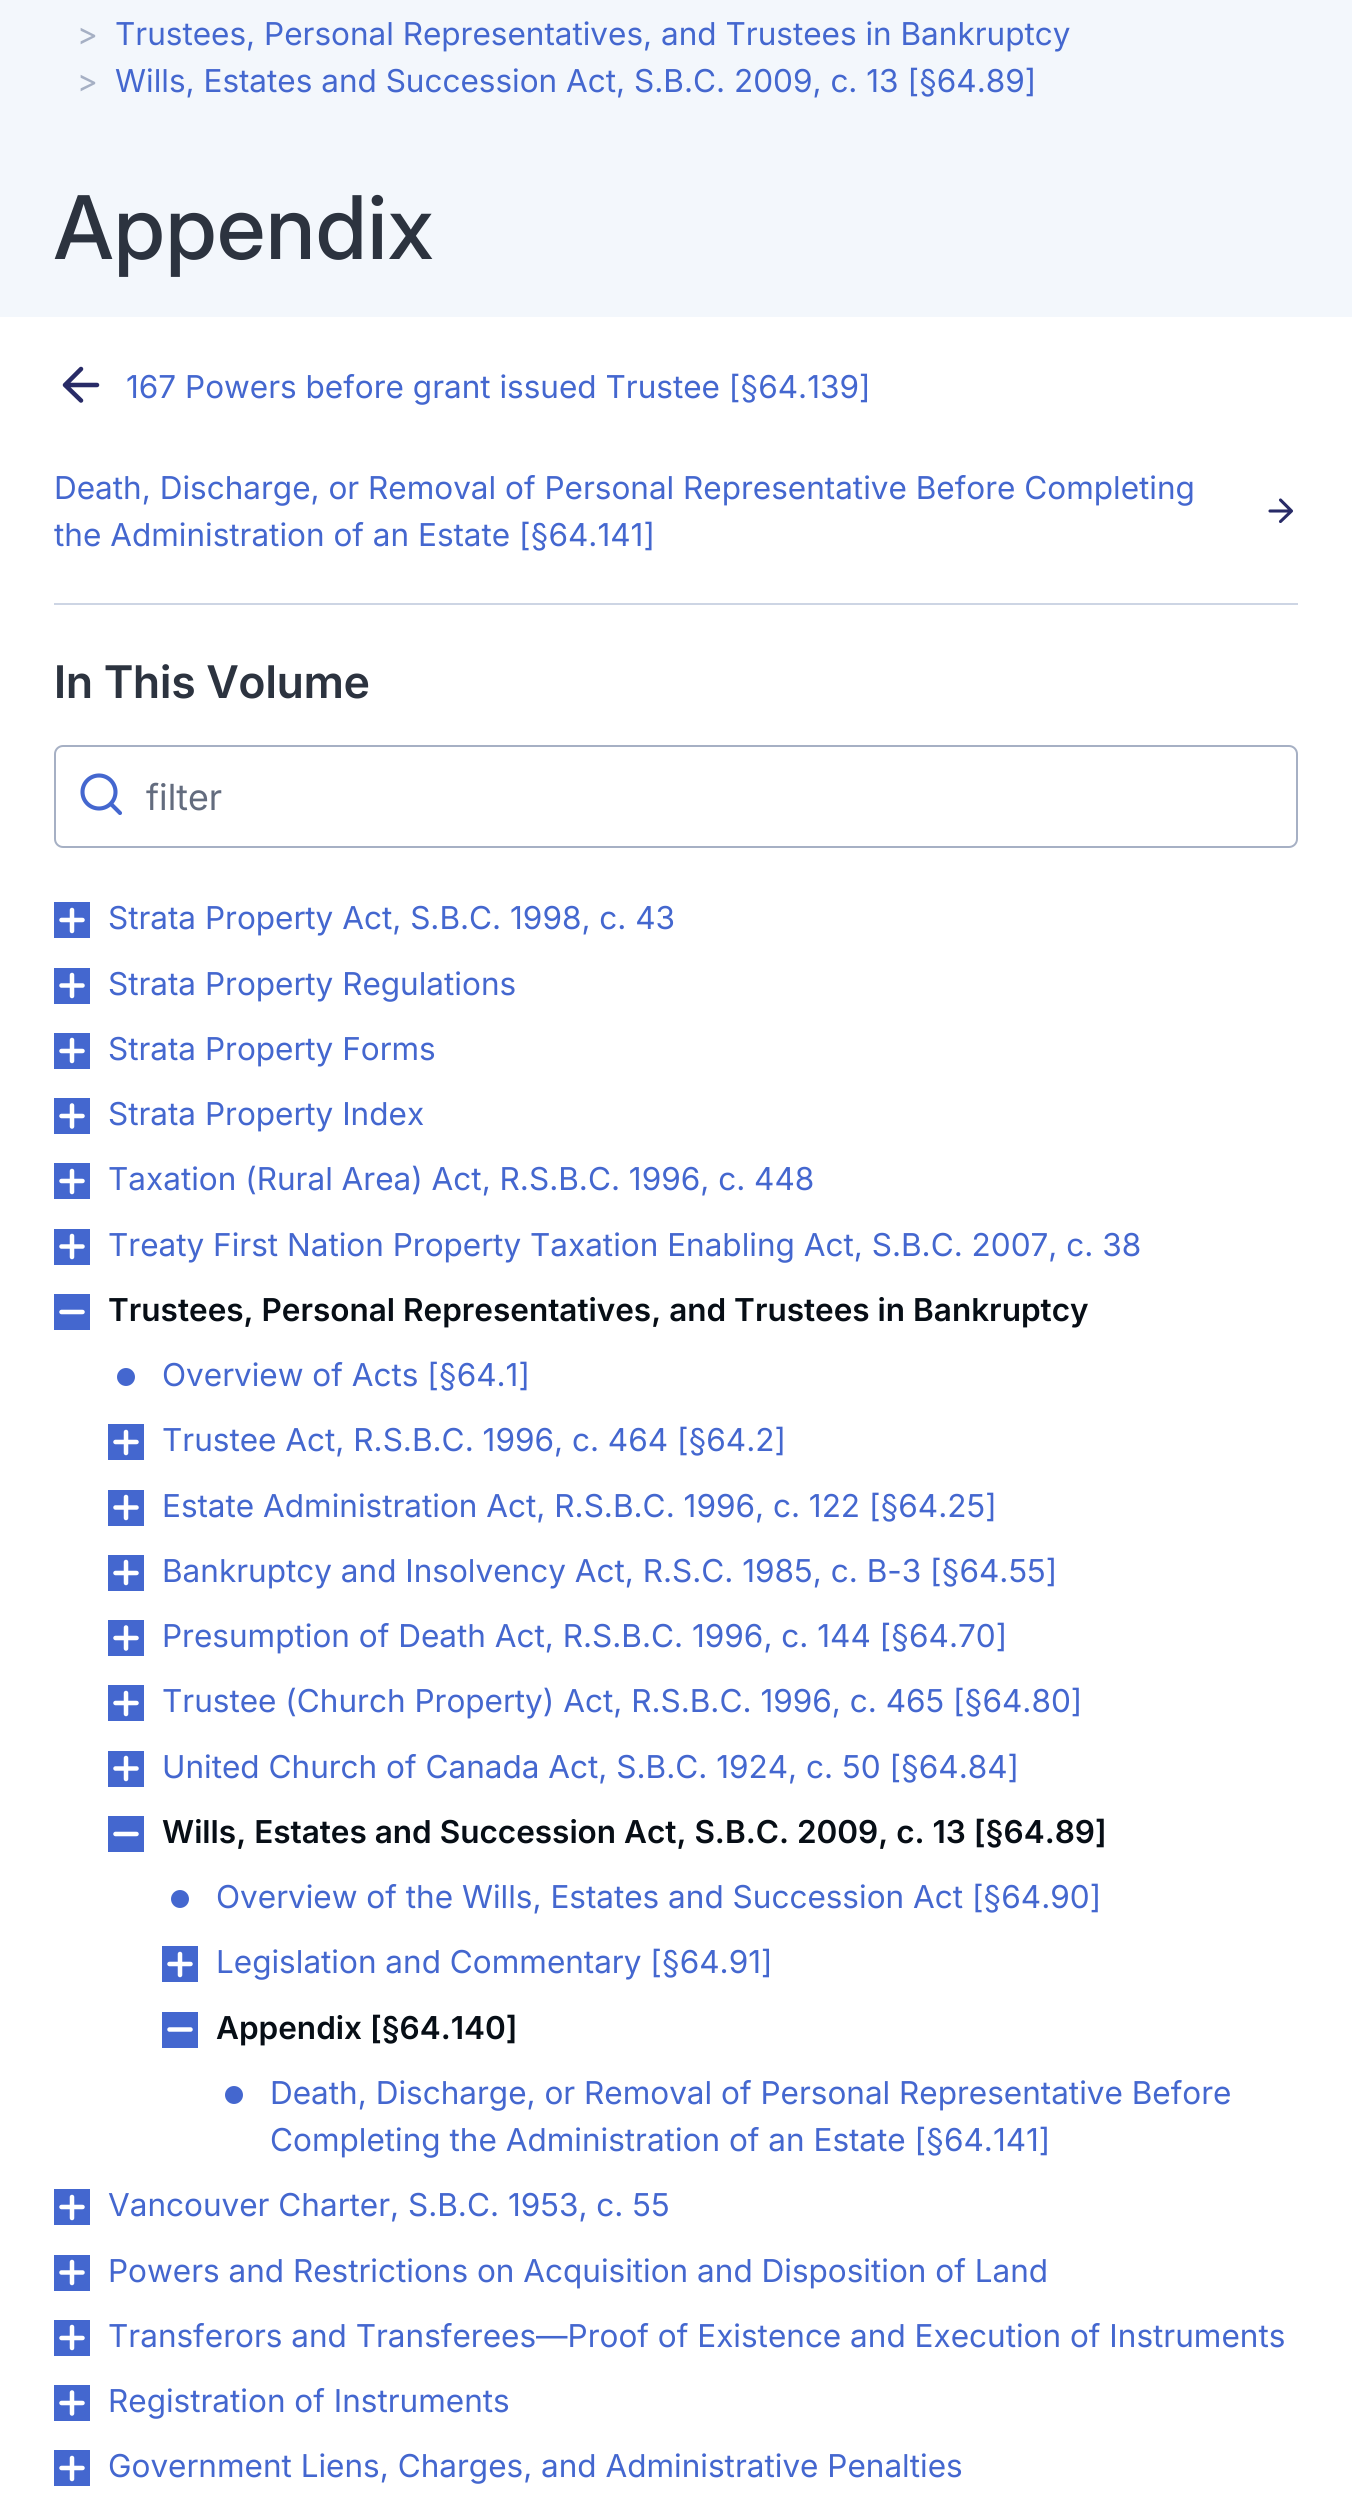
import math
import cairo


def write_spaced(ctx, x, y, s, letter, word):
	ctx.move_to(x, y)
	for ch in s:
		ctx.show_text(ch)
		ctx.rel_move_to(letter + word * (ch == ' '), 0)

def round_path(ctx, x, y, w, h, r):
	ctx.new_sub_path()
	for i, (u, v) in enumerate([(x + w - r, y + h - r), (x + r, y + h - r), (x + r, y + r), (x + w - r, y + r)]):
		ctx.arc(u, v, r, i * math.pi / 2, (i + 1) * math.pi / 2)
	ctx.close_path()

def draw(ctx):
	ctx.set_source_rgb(1, 1, 1)
	ctx.paint()
	ctx.set_source_rgb(0.953, 0.965, 0.988)
	ctx.rectangle(0, 0, 1352, 317)
	ctx.fill()
	ctx.select_font_face('Inter')
	ctx.set_font_size(31.5)
	ctx.set_source_rgb(0.651, 0.69, 0.769)
	ctx.move_to(77, 45)
	ctx.show_text('>')
	ctx.set_source_rgb(0.267, 0.404, 0.812)
	ctx.move_to(115, 45)
	ctx.show_text('Trustees, Personal Representatives, and Trustees in Bankruptcy')
	ctx.set_source_rgb(0.651, 0.69, 0.769)
	ctx.move_to(77, 92)
	ctx.show_text('>')
	ctx.set_source_rgb(0.267, 0.404, 0.812)
	ctx.move_to(115, 92)
	ctx.show_text('Wills, Estates and Succession Act, S.B.C. 2009, c. 13 [§64.89]')
	ctx.select_font_face('Inter Medium')
	ctx.set_font_size(87.75)
	ctx.set_source_rgb(0.173, 0.2, 0.247)
	write_spaced(ctx, 54, 259, 'Appendix', 1, 0)
	ctx.set_source_rgb(0.804, 0.835, 0.894)
	ctx.rectangle(54, 603, 1244, 2)
	ctx.fill()
	ctx.new_path()
	ctx.move_to(97, 385)
	ctx.line_to(65, 385)
	ctx.move_to(81, 400.5)
	ctx.line_to(65, 385)
	ctx.line_to(81, 369)
	ctx.set_source_rgb(0.157, 0.169, 0.404)
	ctx.set_line_width(4.5)
	ctx.set_line_cap(cairo.LINE_CAP_ROUND)
	ctx.set_line_join(cairo.LINE_JOIN_ROUND)
	ctx.stroke()
	ctx.select_font_face('Inter')
	ctx.set_font_size(31.5)
	ctx.set_source_rgb(0.267, 0.404, 0.812)
	for x, y, s in [
		(126, 398, '167 Powers before grant issued Trustee [§64.139]'),
		(54, 499, 'Death, Discharge, or Removal of Personal Representative Before Completing'),
		(54, 546, 'the Administration of an Estate [§64.141]'),
	]:
		ctx.move_to(x, y)
		ctx.show_text(s)
	ctx.new_path()
	ctx.move_to(1270, 511)
	ctx.line_to(1291.5, 511)
	ctx.move_to(1280.5, 500)
	ctx.line_to(1291.5, 511)
	ctx.line_to(1280.5, 521.5)
	ctx.set_source_rgb(0.157, 0.169, 0.404)
	ctx.set_line_width(3.1)
	ctx.stroke()
	ctx.select_font_face('Inter SemiBold')
	ctx.set_font_size(45)
	ctx.set_source_rgb(0.173, 0.2, 0.247)
	ctx.move_to(54, 698)
	ctx.show_text('In This Volume')
	round_path(ctx, 55, 746, 1242, 101, 8)
	ctx.set_source_rgb(0.651, 0.69, 0.769)
	ctx.set_line_width(2)
	ctx.set_line_cap(cairo.LINE_CAP_BUTT)
	ctx.set_line_join(cairo.LINE_JOIN_MITER)
	ctx.stroke()
	ctx.arc(99, 792, 16.5, 0, 2 * math.pi)
	ctx.set_source_rgb(0.267, 0.404, 0.812)
	ctx.set_line_width(4.1)
	ctx.stroke()
	ctx.new_path()
	ctx.move_to(120, 813)
	ctx.line_to(111, 804)
	ctx.set_line_cap(cairo.LINE_CAP_ROUND)
	ctx.set_line_join(cairo.LINE_JOIN_ROUND)
	ctx.stroke()
	ctx.select_font_face('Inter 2')
	ctx.set_font_size(36)
	ctx.set_source_rgb(0.388, 0.424, 0.494)
	ctx.move_to(146, 810)
	ctx.show_text('filter')
	ctx.set_source_rgb(0.267, 0.404, 0.812)
	ctx.rectangle(54, 902, 36, 36)
	ctx.fill()
	ctx.new_path()
	ctx.move_to(72, 910)
	ctx.line_to(72, 931)
	ctx.move_to(61.5, 920)
	ctx.line_to(82.5, 920)
	ctx.set_source_rgb(1, 1, 1)
	ctx.set_line_width(4.5)
	ctx.stroke()
	ctx.select_font_face('Inter')
	ctx.set_font_size(31.5)
	ctx.set_source_rgb(0.267, 0.404, 0.812)
	ctx.move_to(108, 929)
	ctx.show_text('Strata Property Act, S.B.C. 1998, c. 43')
	ctx.rectangle(54, 968, 36, 36)
	ctx.fill()
	ctx.new_path()
	ctx.move_to(72, 975)
	ctx.line_to(72, 996)
	ctx.move_to(61.5, 985.5)
	ctx.line_to(82.5, 985.5)
	ctx.set_source_rgb(1, 1, 1)
	ctx.stroke()
	ctx.set_source_rgb(0.267, 0.404, 0.812)
	ctx.move_to(108, 995)
	ctx.show_text('Strata Property Regulations')
	ctx.rectangle(54, 1033, 36, 36)
	ctx.fill()
	ctx.new_path()
	ctx.move_to(72, 1040)
	ctx.line_to(72, 1061)
	ctx.move_to(61.5, 1051)
	ctx.line_to(82.5, 1051)
	ctx.set_source_rgb(1, 1, 1)
	ctx.stroke()
	ctx.set_source_rgb(0.267, 0.404, 0.812)
	ctx.move_to(108, 1060)
	ctx.show_text('Strata Property Forms')
	ctx.rectangle(54, 1098, 36, 36)
	ctx.fill()
	ctx.new_path()
	ctx.move_to(72, 1105.5)
	ctx.line_to(72, 1126.5)
	ctx.move_to(61.5, 1116)
	ctx.line_to(82.5, 1116)
	ctx.set_source_rgb(1, 1, 1)
	ctx.stroke()
	ctx.set_source_rgb(0.267, 0.404, 0.812)
	ctx.move_to(108, 1125)
	ctx.show_text('Strata Property Index')
	ctx.rectangle(54, 1163, 36, 36)
	ctx.fill()
	ctx.new_path()
	ctx.move_to(72, 1171)
	ctx.line_to(72, 1192)
	ctx.move_to(61.5, 1181)
	ctx.line_to(82.5, 1181)
	ctx.set_source_rgb(1, 1, 1)
	ctx.stroke()
	ctx.set_source_rgb(0.267, 0.404, 0.812)
	ctx.move_to(108, 1190)
	ctx.show_text('Taxation (Rural Area) Act, R.S.B.C. 1996, c. 448')
	ctx.rectangle(54, 1229, 36, 36)
	ctx.fill()
	ctx.new_path()
	ctx.move_to(72, 1236)
	ctx.line_to(72, 1257)
	ctx.move_to(61.5, 1246.5)
	ctx.line_to(82.5, 1246.5)
	ctx.set_source_rgb(1, 1, 1)
	ctx.stroke()
	ctx.set_source_rgb(0.267, 0.404, 0.812)
	ctx.move_to(108, 1256)
	ctx.show_text('Treaty First Nation Property Taxation Enabling Act, S.B.C. 2007, c. 38')
	ctx.rectangle(54, 1294, 36, 36)
	ctx.fill()
	ctx.new_path()
	ctx.move_to(61.5, 1312)
	ctx.line_to(82.5, 1312)
	ctx.set_source_rgb(1, 1, 1)
	ctx.stroke()
	ctx.select_font_face('Inter 2 SemiBold')
	ctx.set_source_rgb(0.031, 0.055, 0.086)
	ctx.move_to(108, 1321)
	ctx.show_text('Trustees, Personal Representatives, and Trustees in Bankruptcy')
	ctx.set_source_rgb(0.267, 0.404, 0.812)
	ctx.new_path()
	ctx.arc(126, 1377, 9, 0, 2 * math.pi)
	ctx.fill()
	ctx.select_font_face('Inter')
	ctx.move_to(162, 1386)
	ctx.show_text('Overview of Acts [§64.1]')
	ctx.rectangle(108, 1424, 36, 36)
	ctx.fill()
	ctx.new_path()
	ctx.move_to(126, 1432)
	ctx.line_to(126, 1453)
	ctx.move_to(115.5, 1442)
	ctx.line_to(136.5, 1442)
	ctx.set_source_rgb(1, 1, 1)
	ctx.stroke()
	ctx.set_source_rgb(0.267, 0.404, 0.812)
	ctx.move_to(162, 1451)
	ctx.show_text('Trustee Act, R.S.B.C. 1996, c. 464 [§64.2]')
	ctx.rectangle(108, 1490, 36, 36)
	ctx.fill()
	ctx.new_path()
	ctx.move_to(126, 1497)
	ctx.line_to(126, 1518)
	ctx.move_to(115.5, 1507.5)
	ctx.line_to(136.5, 1507.5)
	ctx.set_source_rgb(1, 1, 1)
	ctx.stroke()
	ctx.set_source_rgb(0.267, 0.404, 0.812)
	ctx.move_to(162, 1517)
	ctx.show_text('Estate Administration Act, R.S.B.C. 1996, c. 122 [§64.25]')
	ctx.rectangle(108, 1555, 36, 36)
	ctx.fill()
	ctx.new_path()
	ctx.move_to(126, 1562)
	ctx.line_to(126, 1583)
	ctx.move_to(115.5, 1573)
	ctx.line_to(136.5, 1573)
	ctx.set_source_rgb(1, 1, 1)
	ctx.stroke()
	ctx.set_source_rgb(0.267, 0.404, 0.812)
	ctx.move_to(162, 1582)
	ctx.show_text('Bankruptcy and Insolvency Act, R.S.C. 1985, c. B-3 [§64.55]')
	ctx.rectangle(108, 1620, 36, 36)
	ctx.fill()
	ctx.new_path()
	ctx.move_to(126, 1627.5)
	ctx.line_to(126, 1648.5)
	ctx.move_to(115.5, 1638)
	ctx.line_to(136.5, 1638)
	ctx.set_source_rgb(1, 1, 1)
	ctx.stroke()
	ctx.set_source_rgb(0.267, 0.404, 0.812)
	ctx.move_to(162, 1647)
	ctx.show_text('Presumption of Death Act, R.S.B.C. 1996, c. 144 [§64.70]')
	ctx.rectangle(108, 1685, 36, 36)
	ctx.fill()
	ctx.new_path()
	ctx.move_to(126, 1693)
	ctx.line_to(126, 1714)
	ctx.move_to(115.5, 1703)
	ctx.line_to(136.5, 1703)
	ctx.set_source_rgb(1, 1, 1)
	ctx.stroke()
	ctx.set_source_rgb(0.267, 0.404, 0.812)
	ctx.move_to(162, 1712)
	ctx.show_text('Trustee (Church Property) Act, R.S.B.C. 1996, c. 465 [§64.80]')
	ctx.rectangle(108, 1751, 36, 36)
	ctx.fill()
	ctx.new_path()
	ctx.move_to(126, 1758)
	ctx.line_to(126, 1779)
	ctx.move_to(115.5, 1768.5)
	ctx.line_to(136.5, 1768.5)
	ctx.set_source_rgb(1, 1, 1)
	ctx.stroke()
	ctx.set_source_rgb(0.267, 0.404, 0.812)
	ctx.move_to(162, 1778)
	ctx.show_text('United Church of Canada Act, S.B.C. 1924, c. 50 [§64.84]')
	ctx.rectangle(108, 1816, 36, 36)
	ctx.fill()
	ctx.new_path()
	ctx.move_to(115.5, 1834)
	ctx.line_to(136.5, 1834)
	ctx.set_source_rgb(1, 1, 1)
	ctx.stroke()
	ctx.select_font_face('Inter 2 SemiBold')
	ctx.set_source_rgb(0.031, 0.055, 0.086)
	ctx.move_to(162, 1843)
	ctx.show_text('Wills, Estates and Succession Act, S.B.C. 2009, c. 13 [§64.89]')
	ctx.set_source_rgb(0.267, 0.404, 0.812)
	ctx.new_path()
	ctx.arc(180, 1899, 9, 0, 2 * math.pi)
	ctx.fill()
	ctx.select_font_face('Inter')
	ctx.move_to(216, 1908)
	ctx.show_text('Overview of the Wills, Estates and Succession Act [§64.90]')
	ctx.rectangle(162, 1946, 36, 36)
	ctx.fill()
	ctx.new_path()
	ctx.move_to(180, 1954)
	ctx.line_to(180, 1975)
	ctx.move_to(169.5, 1964)
	ctx.line_to(190.5, 1964)
	ctx.set_source_rgb(1, 1, 1)
	ctx.stroke()
	ctx.set_source_rgb(0.267, 0.404, 0.812)
	ctx.move_to(216, 1973)
	ctx.show_text('Legislation and Commentary [§64.91]')
	ctx.rectangle(162, 2012, 36, 36)
	ctx.fill()
	ctx.new_path()
	ctx.move_to(169.5, 2029.5)
	ctx.line_to(190.5, 2029.5)
	ctx.set_source_rgb(1, 1, 1)
	ctx.stroke()
	ctx.select_font_face('Inter 2 SemiBold')
	ctx.set_source_rgb(0.031, 0.055, 0.086)
	ctx.move_to(216, 2039)
	ctx.show_text('Appendix [§64.140]')
	ctx.set_source_rgb(0.267, 0.404, 0.812)
	ctx.new_path()
	ctx.arc(234, 2095, 9, 0, 2 * math.pi)
	ctx.fill()
	ctx.select_font_face('Inter')
	ctx.move_to(270, 2104)
	ctx.show_text('Death, Discharge, or Removal of Personal Representative Before')
	ctx.move_to(270, 2151)
	ctx.show_text('Completing the Administration of an Estate [§64.141]')
	ctx.rectangle(54, 2189, 36, 36)
	ctx.fill()
	ctx.new_path()
	ctx.move_to(72, 2197)
	ctx.line_to(72, 2218)
	ctx.move_to(61.5, 2207)
	ctx.line_to(82.5, 2207)
	ctx.set_source_rgb(1, 1, 1)
	ctx.stroke()
	ctx.set_source_rgb(0.267, 0.404, 0.812)
	ctx.move_to(108, 2216)
	ctx.show_text('Vancouver Charter, S.B.C. 1953, c. 55')
	ctx.rectangle(54, 2255, 36, 36)
	ctx.fill()
	ctx.new_path()
	ctx.move_to(72, 2262)
	ctx.line_to(72, 2283)
	ctx.move_to(61.5, 2272.5)
	ctx.line_to(82.5, 2272.5)
	ctx.set_source_rgb(1, 1, 1)
	ctx.stroke()
	ctx.set_source_rgb(0.267, 0.404, 0.812)
	ctx.move_to(108, 2282)
	ctx.show_text('Powers and Restrictions on Acquisition and Disposition of Land')
	ctx.rectangle(54, 2320, 36, 36)
	ctx.fill()
	ctx.new_path()
	ctx.move_to(72, 2327)
	ctx.line_to(72, 2348)
	ctx.move_to(61.5, 2338)
	ctx.line_to(82.5, 2338)
	ctx.set_source_rgb(1, 1, 1)
	ctx.stroke()
	ctx.set_source_rgb(0.267, 0.404, 0.812)
	ctx.move_to(108, 2347)
	ctx.show_text('Transferors and Transferees—Proof of Existence and Execution of Instruments')
	ctx.rectangle(54, 2385, 36, 36)
	ctx.fill()
	ctx.new_path()
	ctx.move_to(72, 2392.5)
	ctx.line_to(72, 2413.5)
	ctx.move_to(61.5, 2403)
	ctx.line_to(82.5, 2403)
	ctx.set_source_rgb(1, 1, 1)
	ctx.stroke()
	ctx.set_source_rgb(0.267, 0.404, 0.812)
	ctx.move_to(108, 2412)
	ctx.show_text('Registration of Instruments')
	ctx.rectangle(54, 2450, 36, 36)
	ctx.fill()
	ctx.new_path()
	ctx.move_to(72, 2458)
	ctx.line_to(72, 2479)
	ctx.move_to(61.5, 2468)
	ctx.line_to(82.5, 2468)
	ctx.set_source_rgb(1, 1, 1)
	ctx.stroke()
	ctx.set_source_rgb(0.267, 0.404, 0.812)
	ctx.move_to(108, 2477)
	ctx.show_text('Government Liens, Charges, and Administrative Penalties')


surface = cairo.ImageSurface(cairo.FORMAT_RGB24, 1352, 2510)
ctx = cairo.Context(surface)
options = cairo.FontOptions()
options.set_hint_metrics(cairo.HINT_METRICS_OFF)
options.set_hint_style(cairo.HINT_STYLE_NONE)
ctx.set_font_options(options)
ctx.set_miter_limit(4)
draw(ctx)
surface.write_to_png('image.png')
